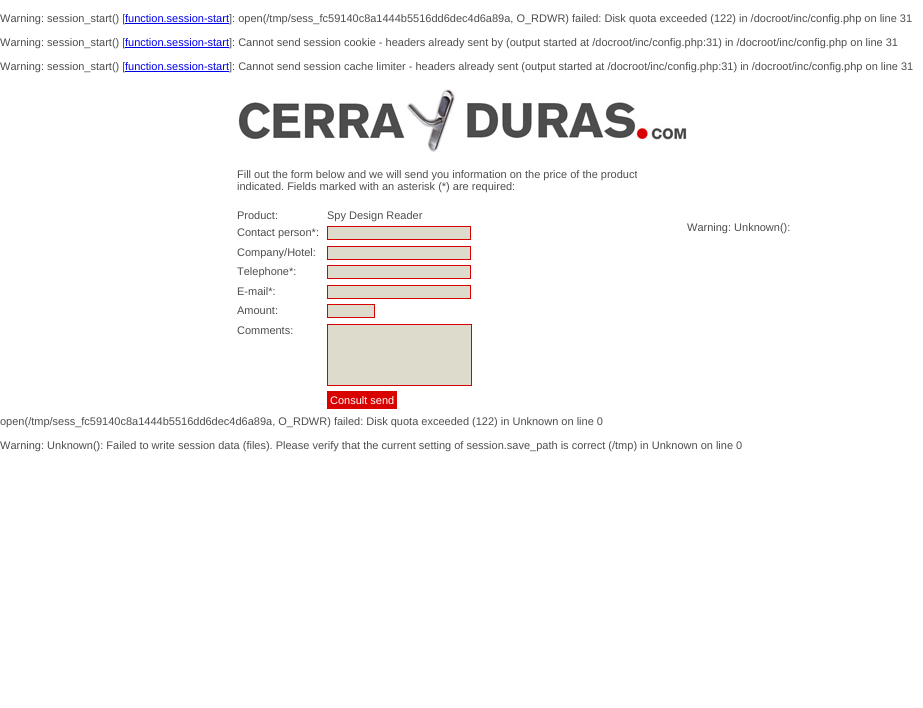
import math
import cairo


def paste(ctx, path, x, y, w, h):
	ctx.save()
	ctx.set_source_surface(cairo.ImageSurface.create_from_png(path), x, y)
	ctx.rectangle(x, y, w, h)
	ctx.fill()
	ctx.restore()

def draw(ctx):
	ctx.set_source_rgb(1, 1, 1)
	ctx.paint()
	ctx.select_font_face('Liberation Sans')
	ctx.set_font_size(11)
	ctx.set_source_rgb(0.302, 0.302, 0.302)
	ctx.move_to(0, 22)
	ctx.show_text('Warning: session_start() [')
	ctx.set_source_rgb(0, 0, 0.933)
	ctx.move_to(125, 22)
	ctx.show_text('function.session-start')
	ctx.rectangle(125, 23, 104, 1)
	ctx.fill()
	ctx.set_source_rgb(0.302, 0.302, 0.302)
	ctx.move_to(229, 22)
	ctx.show_text(']: open(/tmp/sess_fc59140c8a1444b5516dd6dec4d6a89a, O_RDWR) failed: Disk quota exceeded (122) in /docroot/inc/config.php on line 31')
	ctx.move_to(0, 46)
	ctx.show_text('Warning: session_start() [')
	ctx.set_source_rgb(0, 0, 0.933)
	ctx.move_to(125, 46)
	ctx.show_text('function.session-start')
	ctx.rectangle(125, 47, 104, 1)
	ctx.fill()
	ctx.set_source_rgb(0.302, 0.302, 0.302)
	ctx.move_to(229, 46)
	ctx.show_text(']: Cannot send session cookie - headers already sent by (output started at /docroot/inc/config.php:31) in /docroot/inc/config.php on line 31')
	ctx.move_to(0, 70)
	ctx.show_text('Warning: session_start() [')
	ctx.set_source_rgb(0, 0, 0.933)
	ctx.move_to(125, 70)
	ctx.show_text('function.session-start')
	ctx.rectangle(125, 71, 104, 1)
	ctx.fill()
	ctx.set_source_rgb(0.302, 0.302, 0.302)
	ctx.move_to(229, 70)
	ctx.show_text(']: Cannot send session cache limiter - headers already sent (output started at /docroot/inc/config.php:31) in /docroot/inc/config.php on line 31')
	paste(ctx, 'media/1.png', 238, 89, 449, 63)
	for x, y, s in [
		(237, 178, 'Fill out the form below and we will send you information on the price of the product'),
		(237, 190, 'indicated. Fields marked with an asterisk (*) are required:'),
		(237, 219, 'Product:'),
		(327, 219, 'Spy Design Reader'),
		(237, 236, 'Contact person*:'),
	]:
		ctx.move_to(x, y)
		ctx.show_text(s)
	ctx.set_source_rgb(0.867, 0.859, 0.8)
	ctx.rectangle(327.5, 226.5, 143, 13)
	ctx.fill_preserve()
	ctx.set_source_rgb(0.851, 0, 0)
	ctx.set_line_width(1)
	ctx.stroke()
	ctx.set_source_rgb(0.302, 0.302, 0.302)
	ctx.move_to(237, 256)
	ctx.show_text('Company/Hotel:')
	ctx.set_source_rgb(0.867, 0.859, 0.8)
	ctx.rectangle(327.5, 246.5, 143, 13)
	ctx.fill_preserve()
	ctx.set_source_rgb(0.851, 0, 0)
	ctx.stroke()
	ctx.set_source_rgb(0.302, 0.302, 0.302)
	ctx.move_to(237, 275)
	ctx.show_text('Telephone*:')
	ctx.set_source_rgb(0.867, 0.859, 0.8)
	ctx.rectangle(327.5, 265.5, 143, 13)
	ctx.fill_preserve()
	ctx.set_source_rgb(0.851, 0, 0)
	ctx.stroke()
	ctx.set_source_rgb(0.302, 0.302, 0.302)
	ctx.move_to(237, 295)
	ctx.show_text('E-mail*:')
	ctx.set_source_rgb(0.867, 0.859, 0.8)
	ctx.rectangle(327.5, 285.5, 143, 13)
	ctx.fill_preserve()
	ctx.set_source_rgb(0.851, 0, 0)
	ctx.stroke()
	ctx.set_source_rgb(0.302, 0.302, 0.302)
	ctx.move_to(237, 314)
	ctx.show_text('Amount:')
	ctx.set_source_rgb(0.867, 0.859, 0.8)
	ctx.rectangle(327.5, 304.5, 47, 13)
	ctx.fill_preserve()
	ctx.set_source_rgb(0.851, 0, 0)
	ctx.stroke()
	ctx.set_source_rgb(0.302, 0.302, 0.302)
	ctx.move_to(237, 334)
	ctx.show_text('Comments:')
	ctx.set_source_rgb(0.867, 0.859, 0.8)
	ctx.rectangle(327.5, 324.5, 144, 61)
	ctx.fill_preserve()
	ctx.set_source_rgb(0.851, 0, 0)
	ctx.stroke()
	ctx.rectangle(327, 391, 70, 18)
	ctx.fill()
	ctx.set_source_rgb(1, 1, 1)
	ctx.move_to(330, 404)
	ctx.show_text('Consult send')
	ctx.set_source_rgb(0.302, 0.302, 0.302)
	for x, y, s in [
		(687, 231, 'Warning: Unknown():'),
		(0, 425, 'open(/tmp/sess_fc59140c8a1444b5516dd6dec4d6a89a, O_RDWR) failed: Disk quota exceeded (122) in Unknown on line 0'),
		(0, 449, 'Warning: Unknown(): Failed to write session data (files). Please verify that the current setting of session.save_path is correct (/tmp) in Unknown on line 0'),
	]:
		ctx.move_to(x, y)
		ctx.show_text(s)


surface = cairo.ImageSurface(cairo.FORMAT_RGB24, 923, 708)
ctx = cairo.Context(surface)
options = cairo.FontOptions()
options.set_hint_metrics(cairo.HINT_METRICS_OFF)
options.set_hint_style(cairo.HINT_STYLE_NONE)
ctx.set_font_options(options)
ctx.set_miter_limit(4)
draw(ctx)
surface.write_to_png('image.png')
